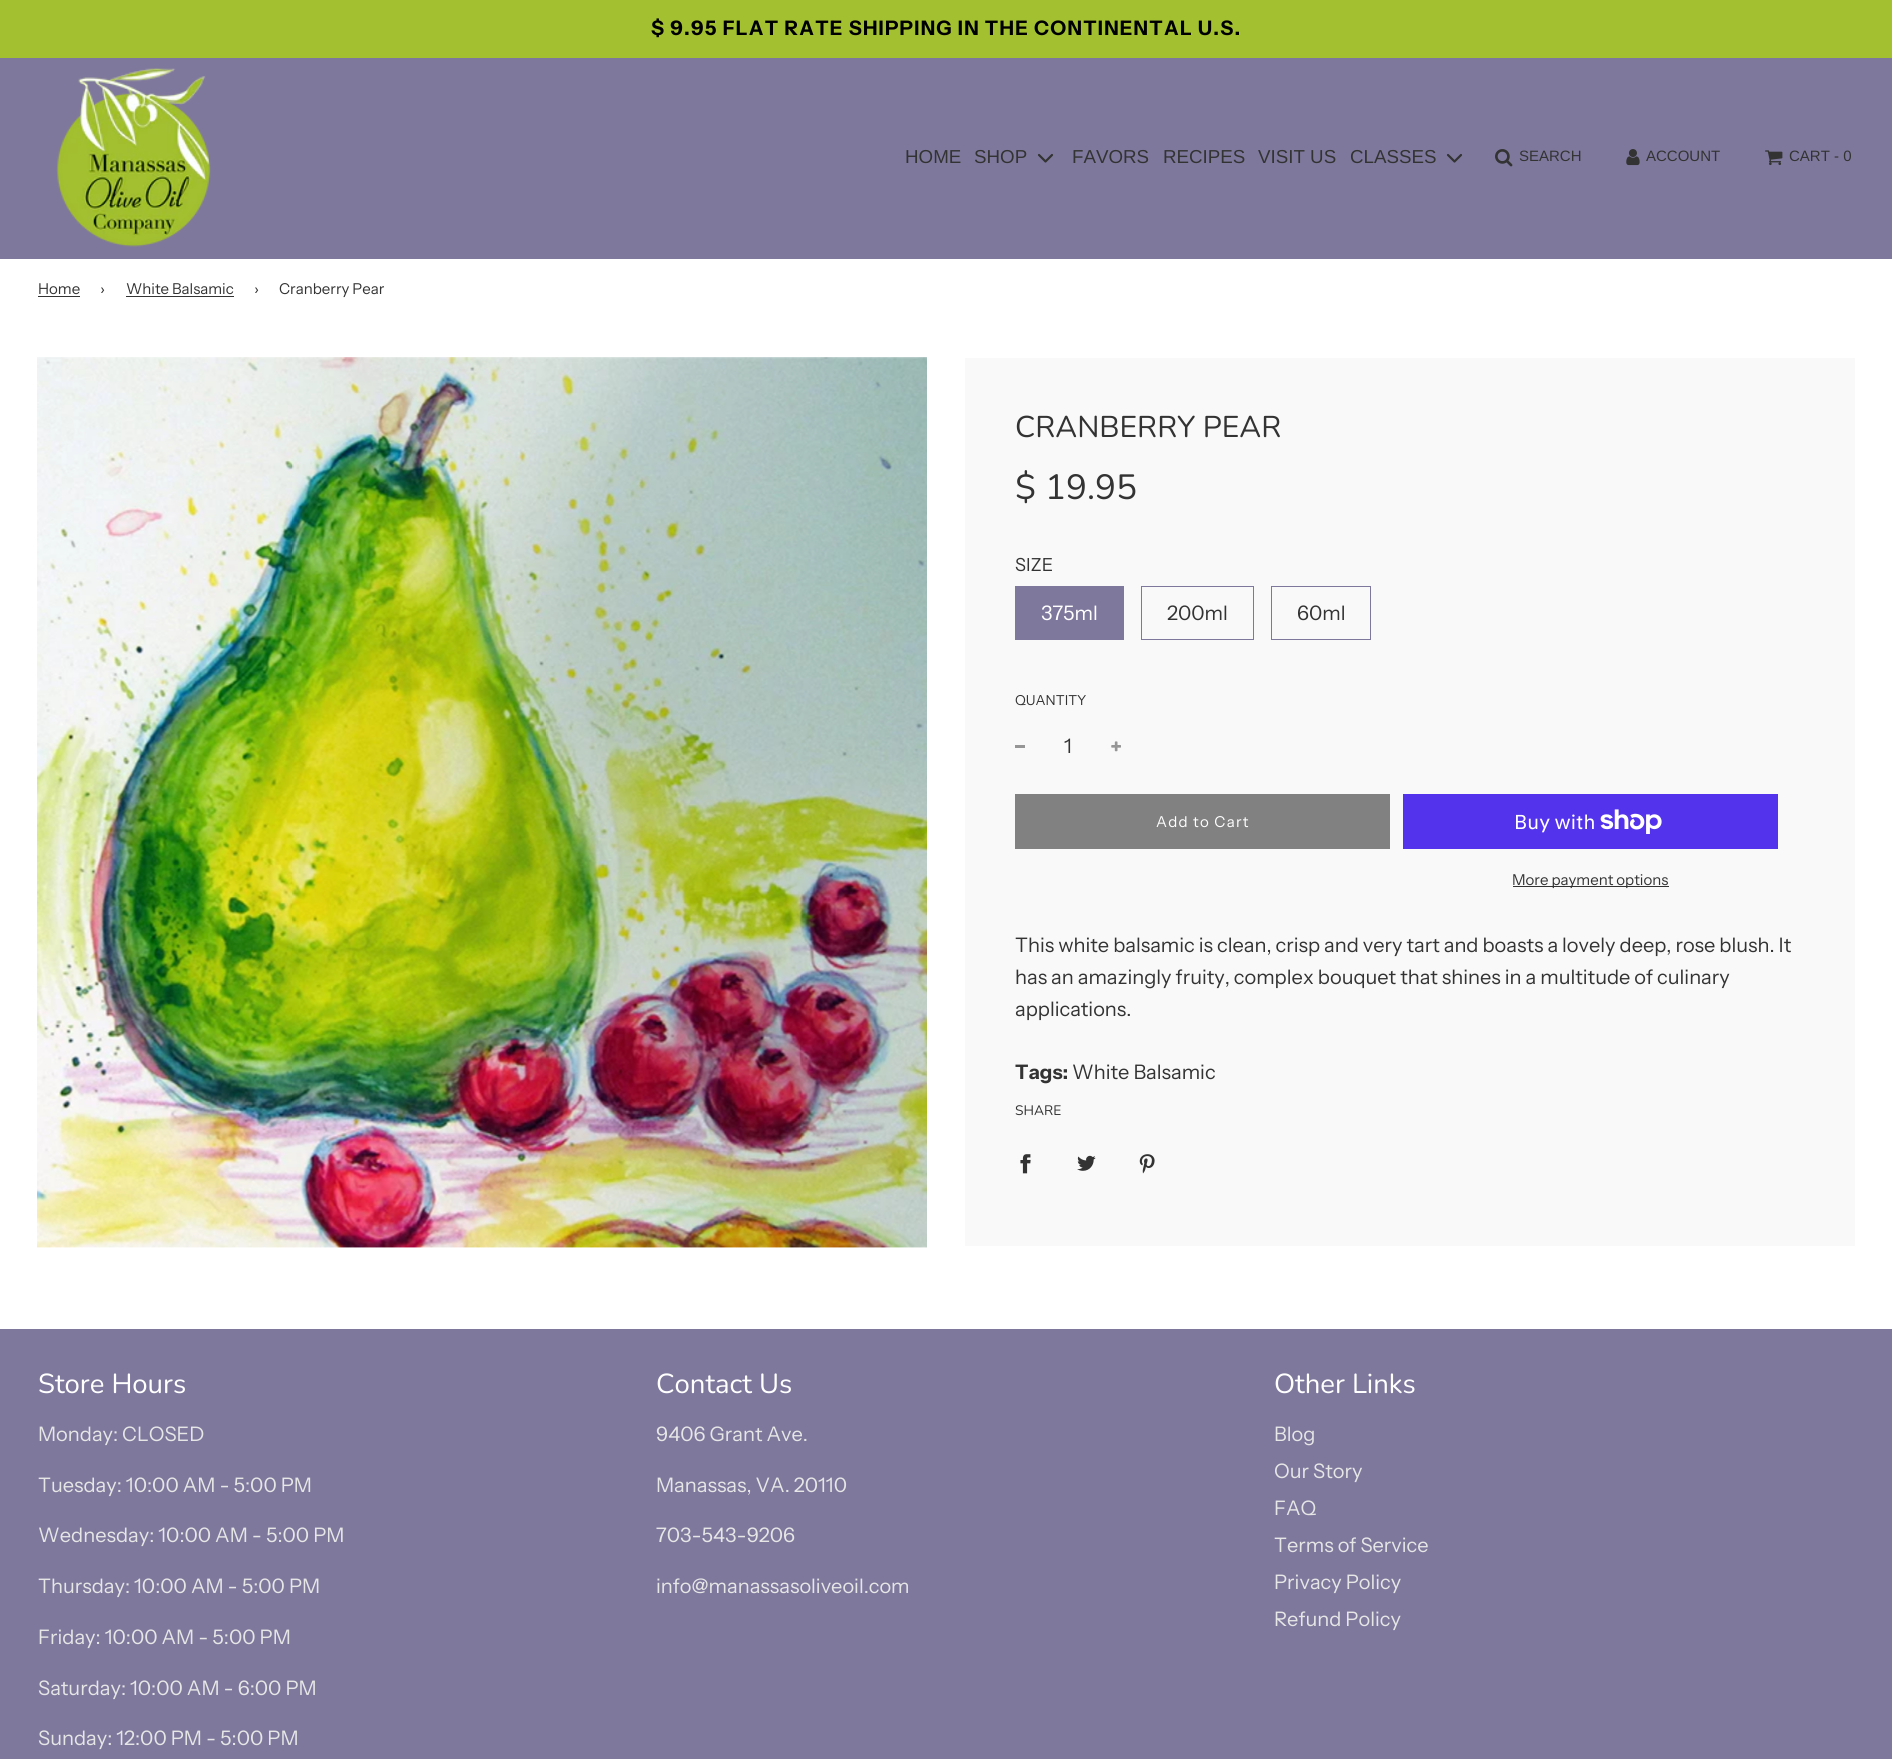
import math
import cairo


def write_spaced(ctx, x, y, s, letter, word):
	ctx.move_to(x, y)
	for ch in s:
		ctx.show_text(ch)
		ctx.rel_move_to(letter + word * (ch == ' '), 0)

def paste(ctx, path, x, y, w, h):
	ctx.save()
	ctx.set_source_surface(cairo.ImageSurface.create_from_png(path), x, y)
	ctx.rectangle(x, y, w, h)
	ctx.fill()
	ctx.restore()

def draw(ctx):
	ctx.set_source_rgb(1, 1, 1)
	ctx.paint()
	ctx.set_source_rgb(0.635, 0.753, 0.184)
	ctx.rectangle(0, 0, 1892, 58)
	ctx.fill()
	ctx.select_font_face('Instrument Sans', cairo.FONT_SLANT_NORMAL, cairo.FONT_WEIGHT_BOLD)
	ctx.set_font_size(20)
	ctx.set_source_rgb(0, 0, 0)
	write_spaced(ctx, 651, 35, '$ 9.95 FLAT RATE SHIPPING IN THE CONTINENTAL U.S.', 1.25, 0)
	ctx.set_source_rgb(0.498, 0.471, 0.616)
	ctx.rectangle(0, 58, 1892, 201)
	ctx.fill()
	paste(ctx, 'media/1.png', 56, 68, 155, 179)
	ctx.select_font_face('Liberation Sans')
	ctx.set_font_size(18.75)
	ctx.set_source_rgb(0.2, 0.2, 0.2)
	ctx.move_to(905, 163)
	ctx.show_text('HOME')
	ctx.move_to(974, 163)
	ctx.show_text('SHOP')
	ctx.new_path()
	ctx.move_to(1039, 155)
	ctx.line_to(1045.5, 161.5)
	ctx.line_to(1052, 155)
	ctx.set_line_width(2.2)
	ctx.set_line_cap(cairo.LINE_CAP_ROUND)
	ctx.set_line_join(cairo.LINE_JOIN_ROUND)
	ctx.stroke()
	for x, y, s in [
		(1072, 163, 'FAVORS'),
		(1163, 163, 'RECIPES'),
		(1258, 163, 'VISIT US'),
		(1350, 163, 'CLASSES'),
	]:
		ctx.move_to(x, y)
		ctx.show_text(s)
	ctx.new_path()
	ctx.move_to(1448, 155)
	ctx.line_to(1454.5, 161.5)
	ctx.line_to(1461, 155)
	ctx.stroke()
	paste(ctx, 'media/2.png', 1495, 149, 18, 18)
	ctx.set_font_size(15)
	ctx.move_to(1519, 161)
	ctx.show_text('SEARCH')
	paste(ctx, 'media/3.png', 1626, 149, 14, 17)
	ctx.move_to(1646, 161)
	ctx.show_text('ACCOUNT')
	paste(ctx, 'media/4.png', 1765, 150, 18, 16)
	ctx.move_to(1789, 161)
	ctx.show_text('CART - 0')
	ctx.select_font_face('Instrument Sans')
	ctx.move_to(38, 294)
	ctx.show_text('Home')
	ctx.rectangle(38, 296, 42, 1)
	ctx.fill()
	ctx.move_to(100, 294)
	ctx.show_text('›')
	ctx.move_to(126, 294)
	ctx.show_text('White Balsamic')
	ctx.rectangle(126, 296, 108, 1)
	ctx.fill()
	ctx.move_to(254, 294)
	ctx.show_text('›')
	ctx.move_to(279, 294)
	ctx.show_text('Cranberry Pear')
	paste(ctx, 'media/5.png', 37, 357, 890, 891)
	ctx.set_source_rgb(0.973, 0.973, 0.973)
	ctx.rectangle(965, 358, 890, 888)
	ctx.fill()
	ctx.select_font_face('Nunito')
	ctx.set_font_size(30)
	ctx.set_source_rgb(0.2, 0.2, 0.2)
	ctx.move_to(1015, 437)
	ctx.show_text('CRANBERRY PEAR')
	ctx.set_font_size(35)
	ctx.move_to(1015, 499)
	ctx.show_text('$ 19.95')
	ctx.select_font_face('Instrument Sans')
	ctx.set_font_size(18)
	ctx.move_to(1015, 571)
	ctx.show_text('SIZE')
	ctx.set_source_rgb(0.498, 0.471, 0.616)
	ctx.rectangle(1015, 586, 109, 54)
	ctx.fill()
	ctx.set_font_size(20)
	ctx.set_source_rgb(1, 1, 1)
	ctx.move_to(1041, 620)
	ctx.show_text('375ml')
	ctx.rectangle(1141.5, 586.5, 112, 53)
	ctx.set_source_rgb(0.498, 0.471, 0.616)
	ctx.set_line_width(1)
	ctx.set_line_cap(cairo.LINE_CAP_BUTT)
	ctx.set_line_join(cairo.LINE_JOIN_MITER)
	ctx.stroke()
	ctx.set_source_rgb(0.2, 0.2, 0.2)
	ctx.move_to(1167, 620)
	ctx.show_text('200ml')
	ctx.rectangle(1271.5, 586.5, 99, 53)
	ctx.set_source_rgb(0.498, 0.471, 0.616)
	ctx.stroke()
	ctx.set_source_rgb(0.2, 0.2, 0.2)
	ctx.move_to(1297, 620)
	ctx.show_text('60ml')
	ctx.set_font_size(13.75)
	ctx.move_to(1015, 705)
	ctx.show_text('QUANTITY')
	ctx.set_source_rgb(0.588, 0.588, 0.588)
	ctx.rectangle(1015, 745, 10, 3)
	ctx.fill()
	ctx.set_font_size(20)
	ctx.set_source_rgb(0.2, 0.2, 0.2)
	ctx.move_to(1064, 753)
	ctx.show_text('1')
	paste(ctx, 'media/6.png', 1111, 741, 10, 11)
	ctx.set_source_rgb(0.506, 0.506, 0.506)
	ctx.rectangle(1015, 794, 375, 55)
	ctx.fill()
	ctx.set_font_size(15)
	ctx.set_source_rgb(1, 1, 1)
	write_spaced(ctx, 1156, 827, 'Add to Cart', 1.25, 0)
	ctx.set_source_rgb(0.329, 0.2, 0.922)
	ctx.rectangle(1403, 794, 375, 55)
	ctx.fill()
	ctx.select_font_face('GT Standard')
	ctx.set_font_size(20)
	ctx.set_source_rgb(1, 1, 1)
	ctx.move_to(1514, 829)
	ctx.show_text('Buy with')
	paste(ctx, 'media/7.png', 1600, 809, 62, 25)
	ctx.set_source_rgb(0.2, 0.2, 0.2)
	ctx.rectangle(1513, 886, 156, 1)
	ctx.fill()
	ctx.select_font_face('Instrument Sans')
	ctx.set_font_size(15)
	ctx.move_to(1512, 885)
	ctx.show_text('More payment options')
	ctx.set_font_size(20)
	for x, y, s in [
		(1015, 952, 'This white balsamic is clean, crisp and very tart and boasts a lovely deep, rose blush. It'),
		(1015, 984, 'has an amazingly fruity, complex bouquet that shines in a multitude of culinary'),
		(1015, 1016, 'applications.'),
	]:
		ctx.move_to(x, y)
		ctx.show_text(s)
	ctx.select_font_face('Instrument Sans', cairo.FONT_SLANT_NORMAL, cairo.FONT_WEIGHT_BOLD)
	ctx.move_to(1015, 1079)
	ctx.show_text('Tags:')
	ctx.select_font_face('Instrument Sans')
	ctx.move_to(1072, 1079)
	ctx.show_text('White Balsamic')
	ctx.select_font_face('Nunito')
	ctx.set_font_size(13.75)
	ctx.move_to(1015, 1115)
	ctx.show_text('SHARE')
	paste(ctx, 'media/8.png', 1020, 1154, 11, 20)
	paste(ctx, 'media/9.png', 1077, 1155, 19, 16)
	paste(ctx, 'media/10.png', 1139, 1154, 16, 20)
	ctx.set_source_rgb(0.498, 0.471, 0.616)
	ctx.rectangle(0, 1329, 1892, 430)
	ctx.fill()
	ctx.set_font_size(27.5)
	ctx.set_source_rgb(1, 1, 1)
	ctx.move_to(38, 1393)
	ctx.show_text('Store Hours')
	ctx.select_font_face('Instrument Sans')
	ctx.set_font_size(20)
	ctx.set_source_rgb(0.902, 0.902, 0.902)
	for x, y, s in [
		(38, 1441, 'Monday: CLOSED'),
		(38, 1492, 'Tuesday: 10:00 AM - 5:00 PM'),
		(38, 1542, 'Wednesday: 10:00 AM - 5:00 PM'),
		(38, 1593, 'Thursday: 10:00 AM - 5:00 PM'),
		(38, 1644, 'Friday: 10:00 AM - 5:00 PM'),
		(38, 1695, 'Saturday: 10:00 AM - 6:00 PM'),
		(38, 1745, 'Sunday: 12:00 PM - 5:00 PM'),
	]:
		ctx.move_to(x, y)
		ctx.show_text(s)
	ctx.select_font_face('Nunito')
	ctx.set_font_size(27.5)
	ctx.set_source_rgb(1, 1, 1)
	ctx.move_to(656, 1393)
	ctx.show_text('Contact Us')
	ctx.select_font_face('Instrument Sans')
	ctx.set_font_size(20)
	ctx.set_source_rgb(0.902, 0.902, 0.902)
	for x, y, s in [
		(656, 1441, '9406 Grant Ave.'),
		(656, 1492, 'Manassas, VA. 20110'),
		(656, 1542, '703-543-9206'),
		(656, 1593, 'info@manassasoliveoil.com'),
	]:
		ctx.move_to(x, y)
		ctx.show_text(s)
	ctx.select_font_face('Nunito')
	ctx.set_font_size(27.5)
	ctx.set_source_rgb(1, 1, 1)
	ctx.move_to(1274, 1393)
	ctx.show_text('Other Links')
	ctx.select_font_face('Instrument Sans')
	ctx.set_font_size(20)
	ctx.set_source_rgb(0.902, 0.902, 0.902)
	for x, y, s in [
		(1274, 1441, 'Blog'),
		(1274, 1478, 'Our Story'),
		(1274, 1515, 'FAQ'),
		(1274, 1552, 'Terms of Service'),
		(1274, 1589, 'Privacy Policy'),
		(1274, 1626, 'Refund Policy'),
	]:
		ctx.move_to(x, y)
		ctx.show_text(s)


surface = cairo.ImageSurface(cairo.FORMAT_RGB24, 1892, 1759)
ctx = cairo.Context(surface)
options = cairo.FontOptions()
options.set_hint_metrics(cairo.HINT_METRICS_OFF)
options.set_hint_style(cairo.HINT_STYLE_NONE)
ctx.set_font_options(options)
ctx.set_miter_limit(4)
draw(ctx)
surface.write_to_png('image.png')
